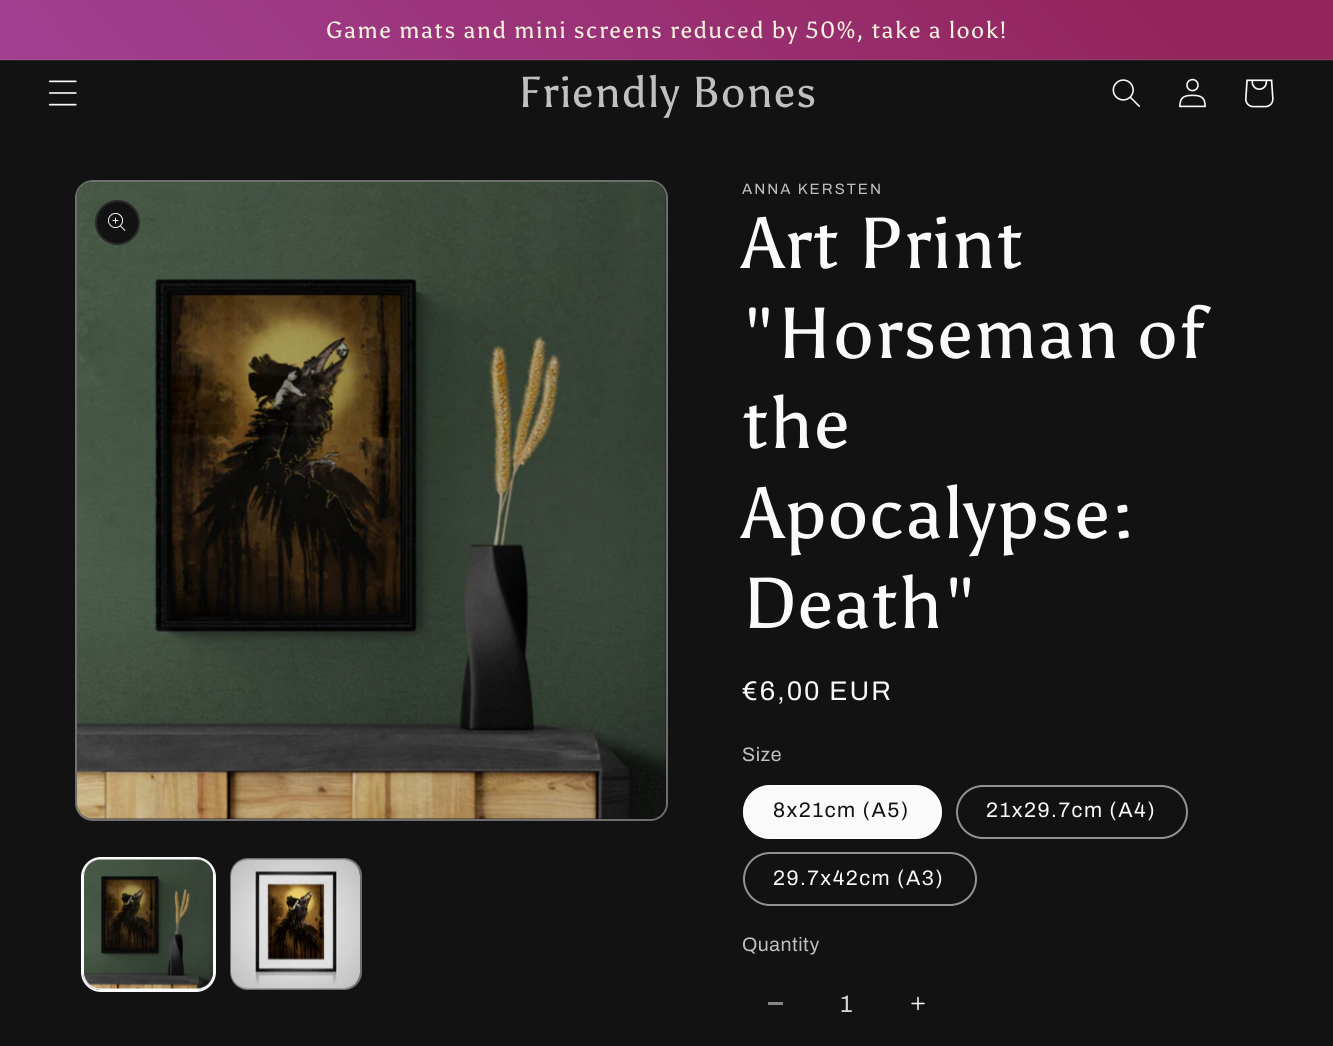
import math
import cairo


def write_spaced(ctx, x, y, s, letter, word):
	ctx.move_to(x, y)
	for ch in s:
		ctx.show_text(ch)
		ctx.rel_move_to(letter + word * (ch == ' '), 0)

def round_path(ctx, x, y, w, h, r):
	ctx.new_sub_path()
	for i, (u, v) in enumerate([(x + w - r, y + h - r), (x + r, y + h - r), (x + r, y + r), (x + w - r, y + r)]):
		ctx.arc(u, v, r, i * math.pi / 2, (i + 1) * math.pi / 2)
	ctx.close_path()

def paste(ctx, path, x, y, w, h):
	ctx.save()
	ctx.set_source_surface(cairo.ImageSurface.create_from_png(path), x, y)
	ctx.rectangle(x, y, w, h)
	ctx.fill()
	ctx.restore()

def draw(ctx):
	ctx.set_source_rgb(0.071, 0.071, 0.071)
	ctx.paint()
	ctx.set_source_rgb(0.141, 0.141, 0.133)
	ctx.rectangle(0, 60, 1333, 1)
	ctx.fill()
	gradient = cairo.LinearGradient(60, 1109, 1273, -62)
	gradient.add_color_stop_rgba(0.05, 0.678, 0.322, 0.714, 1)
	gradient.add_color_stop_rgba(0.92, 0.576, 0.145, 0.365, 1)
	ctx.set_source(gradient)
	ctx.rectangle(0, 0, 1333, 59)
	ctx.fill()
	gradient = cairo.LinearGradient(60, 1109, 1273, -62)
	gradient.add_color_stop_rgba(0.05, 0.702, 0.373, 0.725, 1)
	gradient.add_color_stop_rgba(0.92, 0.608, 0.208, 0.404, 1)
	ctx.set_source(gradient)
	ctx.rectangle(0, 59, 1333, 1)
	ctx.fill()
	ctx.select_font_face('Asul')
	ctx.set_font_size(23.4)
	ctx.set_source_rgb(0.949, 0.937, 0.867)
	write_spaced(ctx, 326, 38, 'Game mats and mini screens reduced by 50%, take a look!', 1.5, 0)
	paste(ctx, 'media/1.png', 48, 80, 29, 26)
	ctx.set_font_size(43.25)
	ctx.set_source_rgb(0.753, 0.753, 0.753)
	write_spaced(ctx, 518, 107, 'Friendly Bones', 1.1, 0)
	paste(ctx, 'media/2.png', 1112, 79, 28, 28)
	paste(ctx, 'media/3.png', 1179, 78, 27, 30)
	paste(ctx, 'media/4.png', 1245, 79, 29, 29)
	round_path(ctx, 76, 181, 591, 639, 17)
	ctx.set_source_rgb(0.435, 0.435, 0.435)
	ctx.stroke()
	paste(ctx, 'media/5.png', 77, 182, 589, 637)
	ctx.set_source_rgb(0.071, 0.071, 0.071)
	ctx.arc(117.5, 222.5, 22.5, 0, 2 * math.pi)
	ctx.fill()
	ctx.arc(117.5, 222.5, 21.5, 0, 2 * math.pi)
	ctx.set_source_rgba(0.98, 0.98, 0.98, 0.1)
	ctx.stroke()
	paste(ctx, 'media/6.png', 108, 213, 18, 18)
	round_path(ctx, 82, 858, 133, 133, 19)
	ctx.set_source_rgb(0.98, 0.98, 0.98)
	ctx.stroke()
	round_path(ctx, 84, 859, 130, 130, 17)
	ctx.stroke()
	paste(ctx, 'media/7.png', 84, 859, 129, 130)
	round_path(ctx, 231, 859, 130, 130, 17)
	ctx.set_source_rgb(0.435, 0.435, 0.435)
	ctx.stroke()
	paste(ctx, 'media/8.png', 231, 859, 129, 130)
	ctx.select_font_face('Archivo')
	ctx.set_font_size(15)
	ctx.set_source_rgb(0.753, 0.753, 0.753)
	write_spaced(ctx, 742, 194, 'ANNA KERSTEN', 2, 0)
	ctx.select_font_face('Asul')
	ctx.set_font_size(72)
	ctx.set_source_rgb(0.98, 0.98, 0.98)
	for x, y, s in [
		(742, 268, 'Art Print'),
		(742, 358, '"Horseman of'),
		(742, 448, 'the'),
		(742, 538, 'Apocalypse:'),
		(742, 628, 'Death"'),
	]:
		write_spaced(ctx, x, y, s, 1.1, 0)
	ctx.select_font_face('Archivo')
	ctx.set_font_size(27)
	write_spaced(ctx, 742, 700, '€6,00 EUR', 2, 0)
	ctx.set_font_size(19.5)
	ctx.set_source_rgb(0.753, 0.753, 0.753)
	write_spaced(ctx, 742, 761, 'Size', 0.5, 0)
	ctx.set_source_rgb(0.98, 0.98, 0.98)
	round_path(ctx, 743, 785, 199, 54, 27)
	ctx.fill()
	round_path(ctx, 744, 786, 197, 52, 26)
	ctx.set_source_rgba(0.98, 0.98, 0.98, 0.55)
	ctx.stroke()
	ctx.set_font_size(21)
	ctx.set_source_rgb(0.071, 0.071, 0.071)
	write_spaced(ctx, 773, 817, '8x21cm (A5)', 1.5, 0)
	round_path(ctx, 957, 786, 230, 52, 26)
	ctx.set_source_rgb(0.573, 0.573, 0.573)
	ctx.stroke()
	ctx.set_source_rgb(0.98, 0.98, 0.98)
	write_spaced(ctx, 986, 817, '21x29.7cm (A4)', 1.5, 0)
	round_path(ctx, 744, 853, 232, 52, 26)
	ctx.set_source_rgb(0.573, 0.573, 0.573)
	ctx.stroke()
	ctx.set_source_rgb(0.98, 0.98, 0.98)
	write_spaced(ctx, 773, 885, '29.7x42cm (A3)', 1.5, 0)
	ctx.set_font_size(19.5)
	ctx.set_source_rgb(0.753, 0.753, 0.753)
	write_spaced(ctx, 742, 951, 'Quantity', 0.5, 0)
	ctx.set_source_rgb(0.525, 0.525, 0.525)
	ctx.rectangle(768, 1002, 15, 3)
	ctx.fill()
	ctx.set_font_size(24)
	ctx.set_source_rgb(0.843, 0.843, 0.843)
	ctx.move_to(840, 1012)
	ctx.show_text('1')
	paste(ctx, 'media/9.png', 911, 996, 14, 15)


surface = cairo.ImageSurface(cairo.FORMAT_RGB24, 1333, 1046)
ctx = cairo.Context(surface)
options = cairo.FontOptions()
options.set_hint_metrics(cairo.HINT_METRICS_OFF)
options.set_hint_style(cairo.HINT_STYLE_NONE)
ctx.set_font_options(options)
ctx.set_miter_limit(4)
draw(ctx)
surface.write_to_png('image.png')
